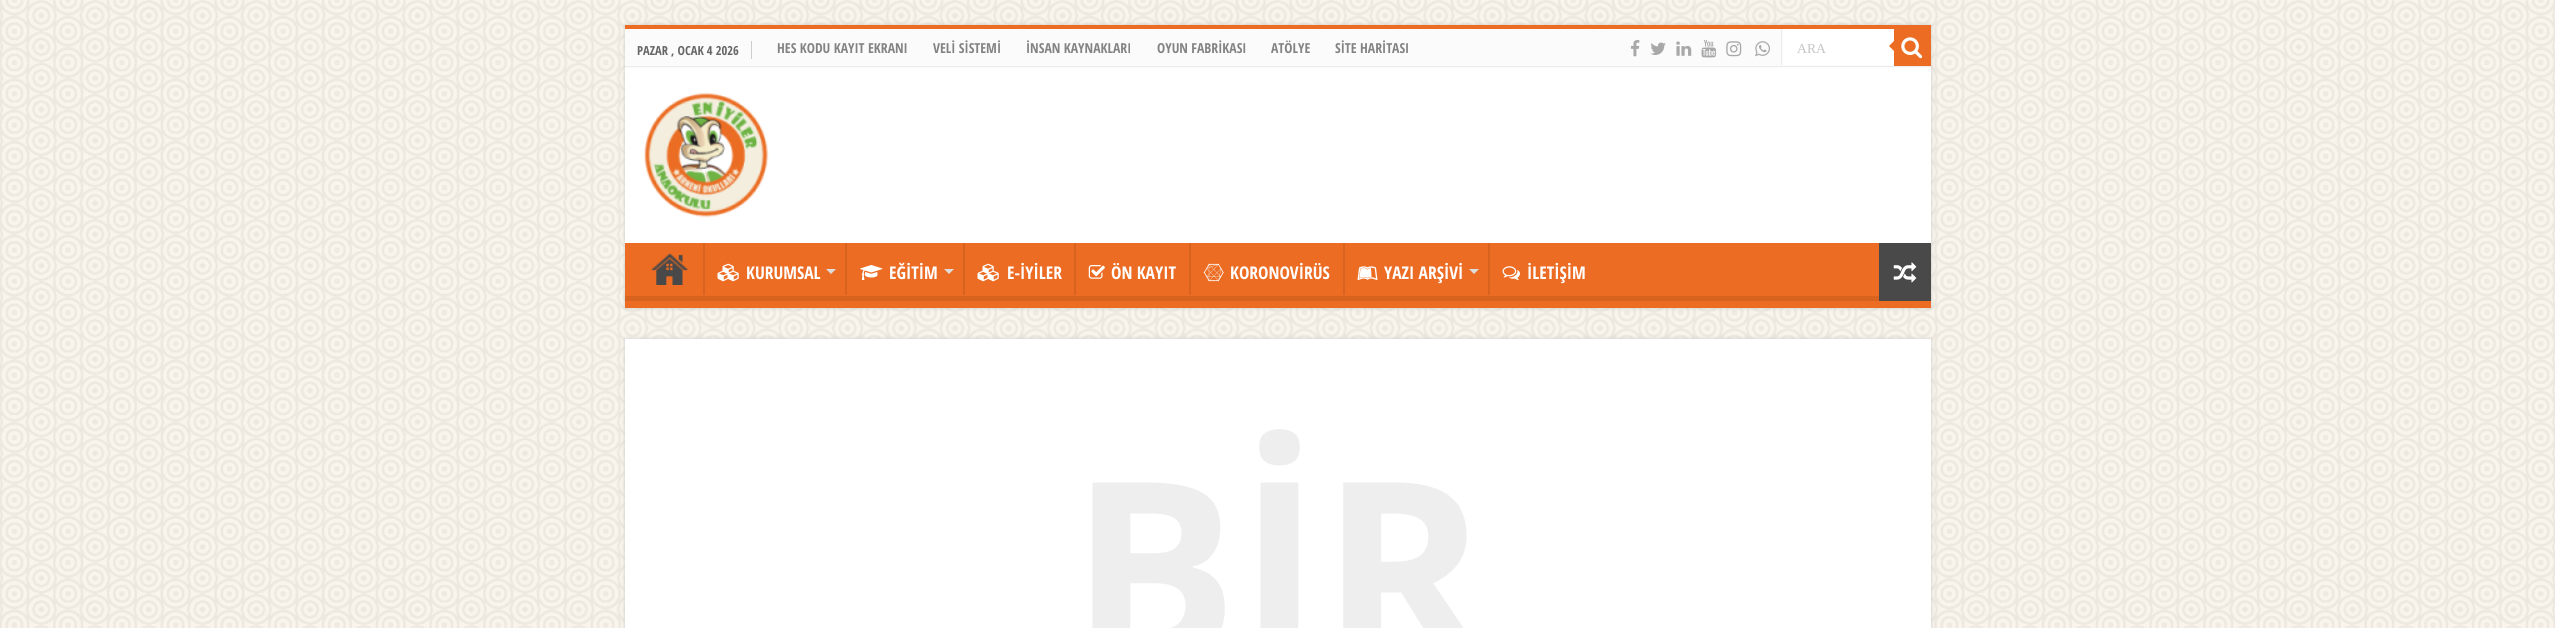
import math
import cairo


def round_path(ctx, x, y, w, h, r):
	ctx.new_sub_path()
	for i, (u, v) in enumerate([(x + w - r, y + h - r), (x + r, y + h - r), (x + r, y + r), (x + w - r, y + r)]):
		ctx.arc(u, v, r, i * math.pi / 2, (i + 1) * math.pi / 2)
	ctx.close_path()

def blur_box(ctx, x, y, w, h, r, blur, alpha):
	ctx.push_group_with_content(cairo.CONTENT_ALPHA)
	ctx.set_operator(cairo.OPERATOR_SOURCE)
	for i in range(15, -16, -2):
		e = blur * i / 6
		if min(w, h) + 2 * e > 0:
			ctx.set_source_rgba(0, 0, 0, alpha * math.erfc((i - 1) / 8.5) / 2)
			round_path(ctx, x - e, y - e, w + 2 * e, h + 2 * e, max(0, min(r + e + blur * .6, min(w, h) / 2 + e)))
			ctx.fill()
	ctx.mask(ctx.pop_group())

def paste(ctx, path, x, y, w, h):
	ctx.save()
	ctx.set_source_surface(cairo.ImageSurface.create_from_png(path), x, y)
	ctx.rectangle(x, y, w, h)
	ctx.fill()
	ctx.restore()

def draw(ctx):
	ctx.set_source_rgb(0.957, 0.933, 0.871)
	ctx.paint()
	paste(ctx, 'media/1.png', 0, 0, 2555, 628)
	ctx.set_source_rgb(0.792, 0.792, 0.792)
	blur_box(ctx, 625, 25, 1306, 283, 0, 2, 1)
	ctx.set_source_rgb(1, 1, 1)
	ctx.rectangle(625, 68, 1306, 175)
	ctx.fill()
	ctx.set_source_rgb(0.922, 0.424, 0.137)
	ctx.rectangle(625, 25, 1306, 4)
	ctx.fill()
	ctx.set_source_rgb(0.984, 0.984, 0.984)
	ctx.rectangle(625, 29, 1306, 39)
	ctx.fill()
	ctx.set_source_rgb(0.925, 0.925, 0.925)
	ctx.rectangle(625, 66, 1306, 1)
	ctx.fill()
	ctx.set_source_rgb(0.8, 0.8, 0.8)
	ctx.rectangle(751, 41, 1, 18)
	ctx.fill()
	ctx.select_font_face('Open Sans Condensed', cairo.FONT_SLANT_NORMAL, cairo.FONT_WEIGHT_BOLD)
	ctx.set_font_size(12.5)
	ctx.set_source_rgb(0.4, 0.4, 0.4)
	ctx.move_to(637, 55)
	ctx.show_text('PAZAR , OCAK 4 2026')
	ctx.set_font_size(13.75)
	ctx.set_source_rgb(0.514, 0.514, 0.514)
	for x, y, s in [
		(777, 53, 'HES KODU KAYIT EKRANI'),
		(933, 53, 'VELİ SİSTEMİ'),
		(1026, 53, 'İNSAN KAYNAKLARI'),
		(1157, 53, 'OYUN FABRİKASI'),
		(1271, 53, 'ATÖLYE'),
		(1335, 53, 'SİTE HARİTASI'),
	]:
		ctx.move_to(x, y)
		ctx.show_text(s)
	paste(ctx, 'media/2.png', 1630, 40, 10, 17)
	paste(ctx, 'media/3.png', 1650, 42, 16, 13)
	paste(ctx, 'media/4.png', 1676, 41, 16, 15)
	paste(ctx, 'media/5.png', 1701, 40, 15, 18)
	paste(ctx, 'media/6.png', 1726, 41, 16, 16)
	paste(ctx, 'media/7.png', 1755, 41, 15, 16)
	ctx.set_source_rgb(1, 1, 1)
	ctx.rectangle(1783, 29, 111, 36)
	ctx.fill()
	ctx.set_source_rgb(0.925, 0.925, 0.925)
	ctx.rectangle(1781, 29, 1, 36)
	ctx.fill()
	ctx.select_font_face('Liberation Serif')
	ctx.set_source_rgb(0.773, 0.773, 0.773)
	ctx.move_to(1797, 53)
	ctx.show_text('ARA')
	ctx.set_source_rgb(0.922, 0.424, 0.137)
	ctx.rectangle(1894, 29, 37, 37)
	ctx.fill()
	paste(ctx, 'media/8.png', 1901, 37, 22, 22)
	ctx.new_path()
	ctx.move_to(1894, 41)
	ctx.line_to(1894, 51)
	ctx.line_to(1889, 46)
	ctx.close_path()
	ctx.fill()
	paste(ctx, 'media/9.png', 644, 92, 125, 126)
	ctx.rectangle(625, 243, 1306, 65)
	ctx.fill()
	ctx.save()
	ctx.rectangle(625, 243, 1306, 58)
	ctx.clip()
	ctx.set_source_rgb(0.847, 0.388, 0.118)
	ctx.set_fill_rule(cairo.FILL_RULE_EVEN_ODD)
	ctx.new_path()
	ctx.move_to(501, 119)
	ctx.line_to(2055, 119)
	ctx.line_to(2055, 425)
	ctx.line_to(501, 425)
	ctx.close_path()
	ctx.move_to(624, 235)
	ctx.line_to(1930, 235)
	ctx.curve_to(1931, 235, 1931, 236, 1931, 236)
	ctx.line_to(1931, 295)
	ctx.curve_to(1931, 296, 1931, 296, 1930, 296)
	ctx.line_to(624, 296)
	ctx.curve_to(623, 296, 622, 296, 622, 295)
	ctx.line_to(622, 236)
	ctx.curve_to(622, 236, 623, 235, 624, 235)
	ctx.close_path()
	ctx.fill()
	ctx.restore()
	paste(ctx, 'media/10.png', 651, 253, 38, 32)
	ctx.set_source_rgb(0.847, 0.388, 0.118)
	ctx.rectangle(703, 243, 2, 52)
	ctx.fill()
	paste(ctx, 'media/11.png', 717, 263, 22, 19)
	ctx.select_font_face('Open Sans Condensed', cairo.FONT_SLANT_NORMAL, cairo.FONT_WEIGHT_BOLD)
	ctx.set_font_size(17.5)
	ctx.set_source_rgb(1, 1, 1)
	ctx.move_to(746, 279)
	ctx.show_text('KURUMSAL')
	ctx.set_source_rgb(0.867, 0.867, 0.867)
	ctx.new_path()
	ctx.move_to(826, 269)
	ctx.line_to(836, 269)
	ctx.line_to(831, 274)
	ctx.close_path()
	ctx.fill()
	ctx.set_source_rgb(0.847, 0.388, 0.118)
	ctx.rectangle(845, 243, 2, 52)
	ctx.fill()
	paste(ctx, 'media/12.png', 860, 265, 23, 15)
	ctx.set_source_rgb(1, 1, 1)
	ctx.move_to(889, 279)
	ctx.show_text('EĞİTİM')
	ctx.set_source_rgb(0.867, 0.867, 0.867)
	ctx.new_path()
	ctx.move_to(944, 269)
	ctx.line_to(954, 269)
	ctx.line_to(949, 274)
	ctx.close_path()
	ctx.fill()
	ctx.set_source_rgb(0.847, 0.388, 0.118)
	ctx.rectangle(963, 243, 2, 52)
	ctx.fill()
	paste(ctx, 'media/11.png', 977, 263, 22, 19)
	ctx.set_source_rgb(1, 1, 1)
	ctx.move_to(1007, 279)
	ctx.show_text('E-İYİLER')
	ctx.set_source_rgb(0.847, 0.388, 0.118)
	ctx.rectangle(1074, 243, 2, 52)
	ctx.fill()
	paste(ctx, 'media/13.png', 1088, 265, 17, 14)
	ctx.set_source_rgb(1, 1, 1)
	ctx.move_to(1111, 279)
	ctx.show_text('ÖN KAYIT')
	ctx.set_source_rgb(0.847, 0.388, 0.118)
	ctx.rectangle(1189, 243, 2, 52)
	ctx.fill()
	paste(ctx, 'media/14.png', 1203, 263, 21, 19)
	ctx.set_source_rgb(1, 1, 1)
	ctx.move_to(1230, 279)
	ctx.show_text('KORONOVİRÜS')
	ctx.set_source_rgb(0.847, 0.388, 0.118)
	ctx.rectangle(1343, 243, 2, 52)
	ctx.fill()
	paste(ctx, 'media/15.png', 1357, 266, 21, 14)
	ctx.set_source_rgb(1, 1, 1)
	ctx.move_to(1384, 279)
	ctx.show_text('YAZI ARŞİVİ')
	ctx.set_source_rgb(0.867, 0.867, 0.867)
	ctx.new_path()
	ctx.move_to(1469, 269)
	ctx.line_to(1479, 269)
	ctx.line_to(1474, 274)
	ctx.close_path()
	ctx.fill()
	ctx.set_source_rgb(0.847, 0.388, 0.118)
	ctx.rectangle(1488, 243, 2, 52)
	ctx.fill()
	paste(ctx, 'media/16.png', 1502, 266, 18, 14)
	ctx.set_source_rgb(1, 1, 1)
	ctx.move_to(1527, 279)
	ctx.show_text('İLETİŞİM')
	ctx.set_source_rgb(0.286, 0.286, 0.286)
	ctx.rectangle(1879, 243, 52, 58)
	ctx.fill()
	paste(ctx, 'media/17.png', 1893, 262, 24, 21)
	ctx.set_source_rgb(0.792, 0.792, 0.792)
	blur_box(ctx, 625, 339, 1306, 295, 0, 2, 1)
	ctx.set_source_rgb(1, 1, 1)
	ctx.rectangle(625, 339, 1306, 289)
	ctx.fill()
	ctx.select_font_face('Open Sans', cairo.FONT_SLANT_NORMAL, cairo.FONT_WEIGHT_BOLD)
	ctx.set_font_size(250)
	ctx.set_source_rgb(0.933, 0.933, 0.933)
	ctx.move_to(1070, 661)
	ctx.show_text('BİR')


surface = cairo.ImageSurface(cairo.FORMAT_RGB24, 2555, 628)
ctx = cairo.Context(surface)
options = cairo.FontOptions()
options.set_hint_metrics(cairo.HINT_METRICS_OFF)
options.set_hint_style(cairo.HINT_STYLE_NONE)
ctx.set_font_options(options)
ctx.set_miter_limit(4)
draw(ctx)
surface.write_to_png('image.png')
